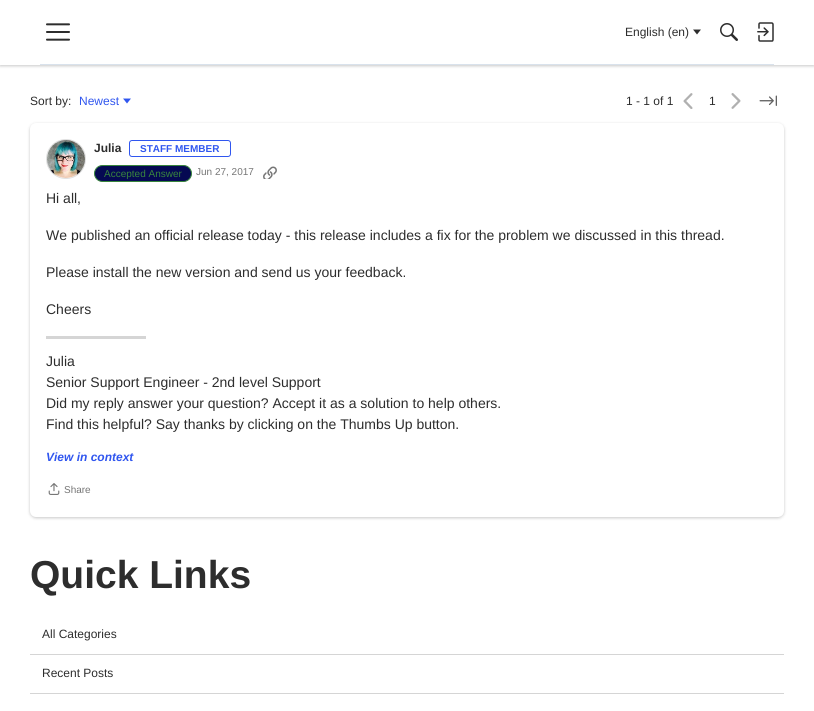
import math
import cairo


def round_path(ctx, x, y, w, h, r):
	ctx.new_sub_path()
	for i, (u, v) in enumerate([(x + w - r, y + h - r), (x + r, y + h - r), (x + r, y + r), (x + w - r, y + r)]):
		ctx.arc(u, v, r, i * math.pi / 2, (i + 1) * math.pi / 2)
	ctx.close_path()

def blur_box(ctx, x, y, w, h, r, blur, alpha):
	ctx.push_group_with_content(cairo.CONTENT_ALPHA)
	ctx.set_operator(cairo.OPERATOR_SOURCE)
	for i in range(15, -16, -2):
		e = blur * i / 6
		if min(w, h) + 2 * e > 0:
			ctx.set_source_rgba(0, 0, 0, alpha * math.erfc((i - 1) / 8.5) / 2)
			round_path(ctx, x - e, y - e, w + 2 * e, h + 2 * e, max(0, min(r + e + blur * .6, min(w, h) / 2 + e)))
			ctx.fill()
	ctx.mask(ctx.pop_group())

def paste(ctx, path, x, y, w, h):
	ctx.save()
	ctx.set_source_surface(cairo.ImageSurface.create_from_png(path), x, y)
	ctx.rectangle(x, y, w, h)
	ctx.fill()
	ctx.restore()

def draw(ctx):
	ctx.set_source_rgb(1, 1, 1)
	ctx.paint()
	ctx.set_source_rgb(0, 0, 0)
	blur_box(ctx, 0, 1, 814, 65, 0, 1.5, 0.22)
	ctx.set_source_rgb(1, 1, 1)
	ctx.rectangle(0, 0, 814, 65)
	ctx.fill()
	ctx.set_source_rgb(0.851, 0.886, 0.922)
	ctx.rectangle(40, 64, 734, 1)
	ctx.fill()
	paste(ctx, 'media/1.png', 46, 23, 24, 18)
	ctx.select_font_face('Liberation Sans')
	ctx.set_font_size(12)
	ctx.set_source_rgb(0.176, 0.176, 0.176)
	ctx.move_to(625, 36)
	ctx.show_text('English (en)')
	ctx.new_path()
	ctx.move_to(693, 29.5)
	ctx.line_to(701, 29.5)
	ctx.line_to(697, 34.5)
	ctx.close_path()
	ctx.fill()
	paste(ctx, 'media/2.png', 720, 23, 18, 18)
	paste(ctx, 'media/3.png', 757, 22, 17, 20)
	ctx.move_to(30, 105)
	ctx.show_text('Sort by:')
	ctx.set_source_rgb(0.188, 0.337, 0.937)
	ctx.move_to(79, 105)
	ctx.show_text('Newest')
	ctx.new_path()
	ctx.move_to(123, 98.5)
	ctx.line_to(131, 98.5)
	ctx.line_to(127, 103.5)
	ctx.close_path()
	ctx.fill()
	ctx.set_source_rgb(0.176, 0.176, 0.176)
	ctx.move_to(626, 105)
	ctx.show_text('1 - 1 of 1')
	paste(ctx, 'media/4.png', 683, 93, 10, 16)
	ctx.move_to(709, 105)
	ctx.show_text('1')
	paste(ctx, 'media/5.png', 731, 93, 10, 16)
	paste(ctx, 'media/6.png', 759, 95, 18, 11)
	ctx.set_source_rgb(0, 0, 0)
	blur_box(ctx, 30, 124, 754, 394, 6, 1.5, 0.22)
	ctx.set_source_rgb(1, 1, 1)
	round_path(ctx, 30, 123, 754, 394, 6)
	ctx.fill()
	ctx.arc(66, 159, 19.5, 0, 2 * math.pi)
	ctx.set_source_rgb(0.878, 0.878, 0.878)
	ctx.set_line_width(1)
	ctx.stroke()
	paste(ctx, 'media/7.png', 47, 140, 38, 38)
	ctx.select_font_face('Liberation Sans', cairo.FONT_SLANT_NORMAL, cairo.FONT_WEIGHT_BOLD)
	ctx.set_source_rgb(0.176, 0.176, 0.176)
	ctx.move_to(94, 152)
	ctx.show_text('Julia')
	round_path(ctx, 129.5, 140.5, 101, 16, 2.5)
	ctx.set_source_rgb(0.188, 0.337, 0.937)
	ctx.stroke()
	ctx.set_font_size(10)
	ctx.move_to(140, 152)
	ctx.show_text('STAFF MEMBER')
	ctx.set_source_rgb(0.02, 0.039, 0.322)
	round_path(ctx, 94.5, 165.5, 97, 16, 8)
	ctx.fill_preserve()
	ctx.set_source_rgb(0.22, 0.522, 0.239)
	ctx.stroke()
	ctx.select_font_face('Liberation Sans')
	ctx.move_to(104, 177)
	ctx.show_text('Accepted Answer')
	ctx.set_source_rgb(0.463, 0.463, 0.463)
	ctx.move_to(196, 175)
	ctx.show_text('Jun 27, 2017')
	paste(ctx, 'media/8.png', 263, 166, 14, 13)
	ctx.set_font_size(14)
	ctx.set_source_rgb(0.176, 0.176, 0.176)
	for x, y, s in [
		(46, 203, 'Hi all,'),
		(46, 240, 'We published an official release today - this release includes a fix for the problem we discussed in this thread.'),
		(46, 277, 'Please install the new version and send us your feedback.'),
		(46, 314, 'Cheers'),
	]:
		ctx.move_to(x, y)
		ctx.show_text(s)
	ctx.set_source_rgb(0.835, 0.835, 0.835)
	ctx.rectangle(46, 336, 100, 3)
	ctx.fill()
	ctx.set_source_rgb(0.176, 0.176, 0.176)
	for x, y, s in [
		(46, 366, 'Julia'),
		(46, 387, 'Senior Support Engineer - 2nd level Support'),
		(46, 408, 'Did my reply answer your question? Accept it as a solution to help others.'),
		(46, 429, 'Find this helpful? Say thanks by clicking on the Thumbs Up button.'),
	]:
		ctx.move_to(x, y)
		ctx.show_text(s)
	ctx.select_font_face('Liberation Sans', cairo.FONT_SLANT_ITALIC, cairo.FONT_WEIGHT_BOLD)
	ctx.set_font_size(12)
	ctx.set_source_rgb(0.188, 0.337, 0.937)
	ctx.move_to(46, 461)
	ctx.show_text('View in context')
	paste(ctx, 'media/9.png', 48, 483, 12, 12)
	ctx.select_font_face('Liberation Sans')
	ctx.set_font_size(10)
	ctx.set_source_rgb(0.463, 0.463, 0.463)
	ctx.move_to(64, 493)
	ctx.show_text('Share')
	ctx.select_font_face('Liberation Sans', cairo.FONT_SLANT_NORMAL, cairo.FONT_WEIGHT_BOLD)
	ctx.set_font_size(39)
	ctx.set_source_rgb(0.176, 0.176, 0.176)
	ctx.move_to(30, 588)
	ctx.show_text('Quick Links')
	ctx.set_source_rgb(0.835, 0.835, 0.835)
	ctx.rectangle(30, 654, 754, 1)
	ctx.fill()
	ctx.select_font_face('Liberation Sans')
	ctx.set_font_size(12)
	ctx.set_source_rgb(0.176, 0.176, 0.176)
	ctx.move_to(42, 638)
	ctx.show_text('All Categories')
	ctx.set_source_rgb(0.835, 0.835, 0.835)
	ctx.rectangle(30, 693, 754, 1)
	ctx.fill()
	ctx.set_source_rgb(0.176, 0.176, 0.176)
	ctx.move_to(42, 677)
	ctx.show_text('Recent Posts')


surface = cairo.ImageSurface(cairo.FORMAT_RGB24, 814, 711)
ctx = cairo.Context(surface)
options = cairo.FontOptions()
options.set_hint_metrics(cairo.HINT_METRICS_OFF)
options.set_hint_style(cairo.HINT_STYLE_NONE)
ctx.set_font_options(options)
ctx.set_miter_limit(4)
draw(ctx)
surface.write_to_png('image.png')
